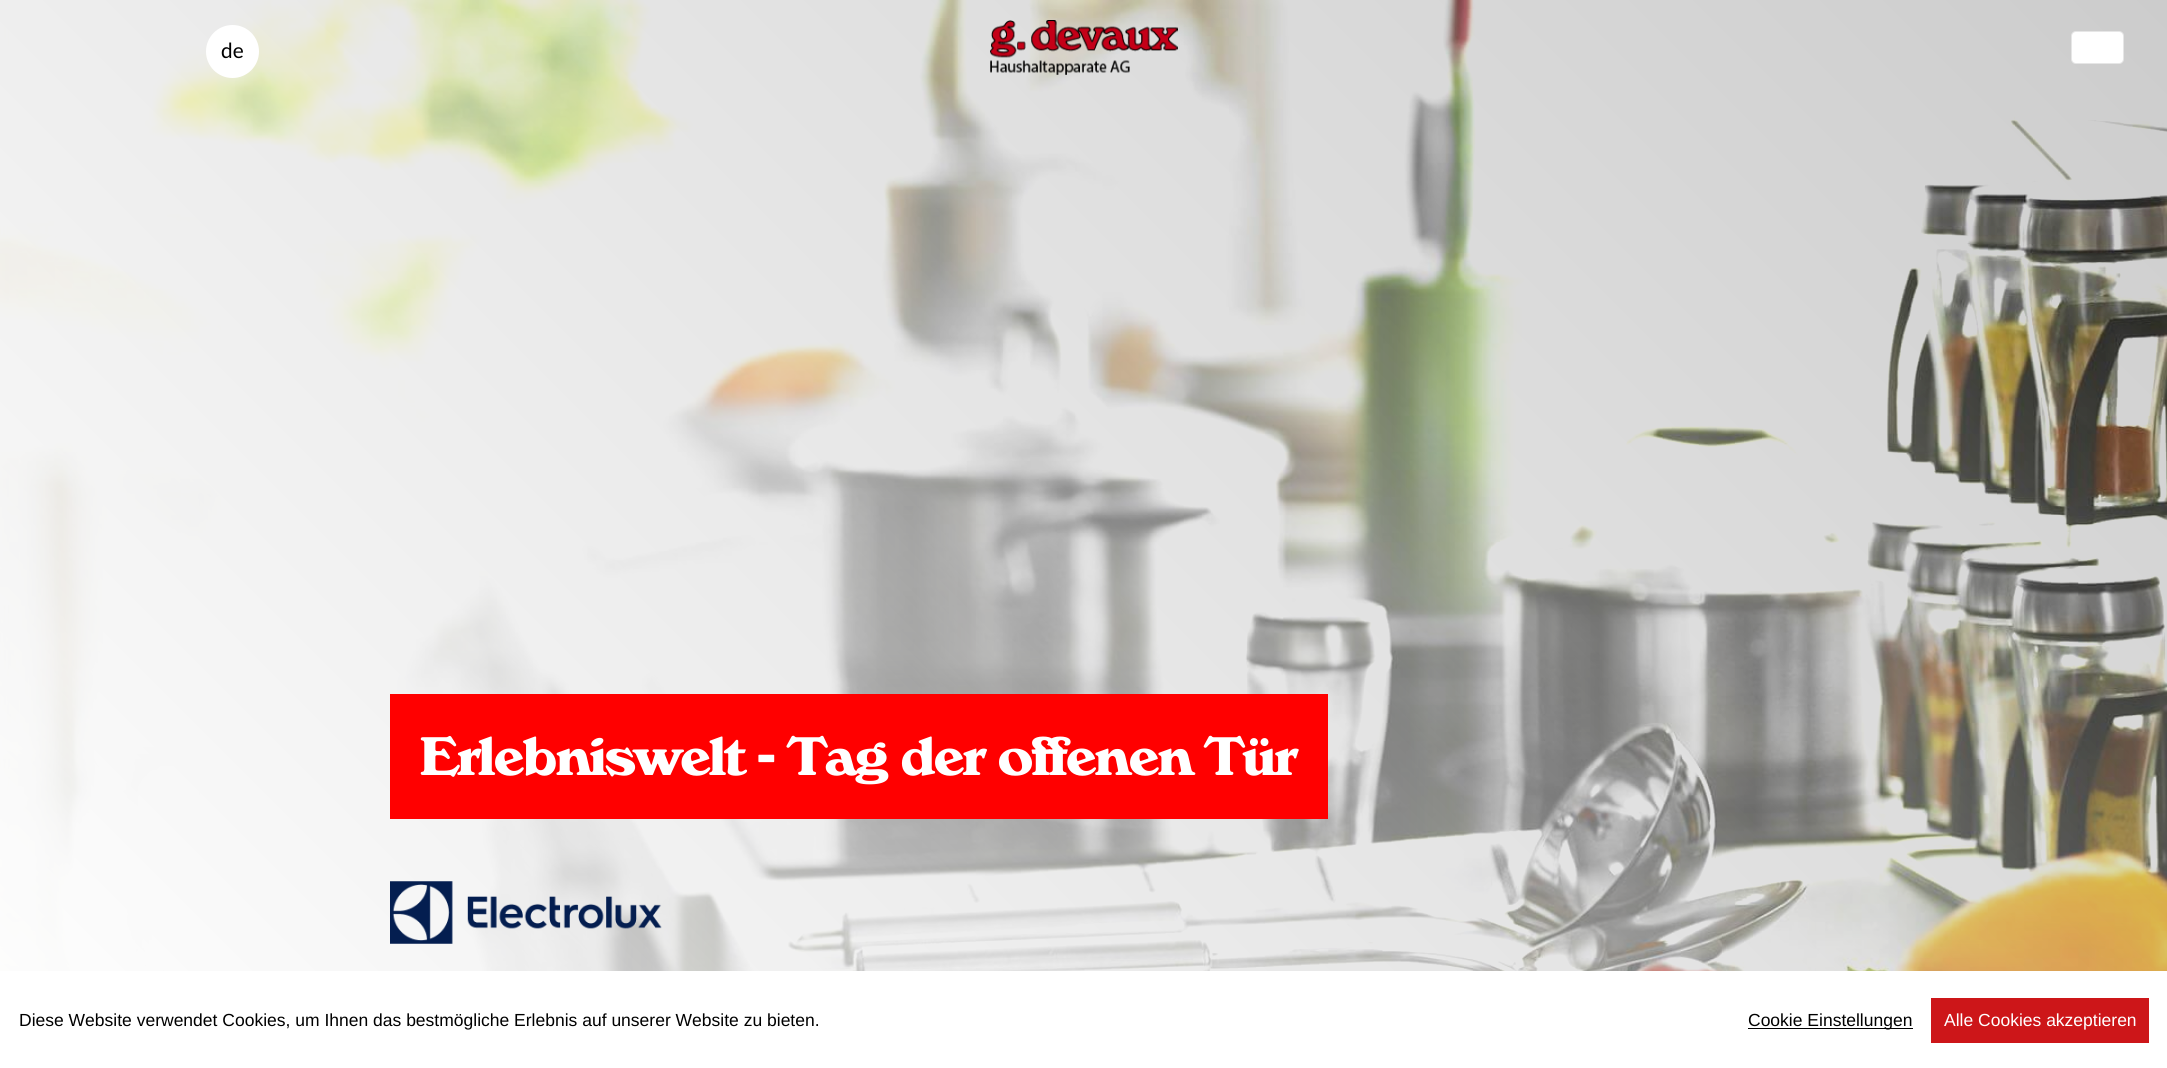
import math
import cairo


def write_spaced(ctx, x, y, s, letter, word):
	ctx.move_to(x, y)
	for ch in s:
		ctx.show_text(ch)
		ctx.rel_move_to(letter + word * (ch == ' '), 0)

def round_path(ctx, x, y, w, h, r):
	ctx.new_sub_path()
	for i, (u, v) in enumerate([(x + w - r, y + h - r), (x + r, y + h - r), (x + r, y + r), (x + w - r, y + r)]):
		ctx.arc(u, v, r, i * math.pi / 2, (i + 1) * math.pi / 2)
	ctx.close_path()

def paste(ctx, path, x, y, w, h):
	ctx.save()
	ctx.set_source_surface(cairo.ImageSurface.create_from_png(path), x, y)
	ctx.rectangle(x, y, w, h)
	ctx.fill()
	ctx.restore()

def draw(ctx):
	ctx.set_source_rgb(1, 1, 1)
	ctx.paint()
	paste(ctx, 'media/2.png', 0, 0, 2167, 971)
	ctx.set_source_rgb(1, 1, 1)
	ctx.arc(232.5, 51.5, 26.5, 0, 2 * math.pi)
	ctx.fill()
	ctx.select_font_face('Lato')
	ctx.set_font_size(21)
	ctx.set_source_rgb(0, 0, 0)
	ctx.move_to(221, 58)
	ctx.show_text('de')
	paste(ctx, 'media/1.png', 990, 20, 188, 55)
	ctx.set_source_rgb(1, 1, 1)
	round_path(ctx, 2071, 31, 53, 33, 5)
	ctx.fill()
	round_path(ctx, 2071.5, 31.5, 52, 32, 4.5)
	ctx.set_source_rgba(0, 0, 0, 0.1)
	ctx.set_line_width(1)
	ctx.stroke()
	ctx.set_source_rgb(1, 0, 0)
	ctx.rectangle(390, 694, 938, 125)
	ctx.fill()
	ctx.select_font_face('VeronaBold', cairo.FONT_SLANT_NORMAL, cairo.FONT_WEIGHT_BOLD)
	ctx.set_font_size(52.5)
	ctx.set_source_rgb(1, 1, 1)
	write_spaced(ctx, 421, 775, 'Erlebniswelt - Tag der offenen Tür', -1.25, 0)
	paste(ctx, 'media/3.png', 390, 881, 272, 63)
	ctx.select_font_face('Liberation Sans')
	ctx.set_font_size(17.5)
	ctx.set_source_rgb(0, 0, 0)
	ctx.move_to(19, 1026)
	ctx.show_text('Diese Website verwendet Cookies, um Ihnen das bestmögliche Erlebnis auf unserer Website zu bieten.')
	ctx.rectangle(1748, 1028, 165, 1)
	ctx.fill()
	ctx.move_to(1748, 1026)
	ctx.show_text('Cookie Einstellungen')
	ctx.set_source_rgb(0.804, 0.086, 0.098)
	ctx.rectangle(1931, 998, 218, 45)
	ctx.fill()
	ctx.set_source_rgb(1, 1, 1)
	ctx.move_to(1944, 1026)
	ctx.show_text('Alle Cookies akzeptieren')


surface = cairo.ImageSurface(cairo.FORMAT_RGB24, 2167, 1068)
ctx = cairo.Context(surface)
options = cairo.FontOptions()
options.set_hint_metrics(cairo.HINT_METRICS_OFF)
options.set_hint_style(cairo.HINT_STYLE_NONE)
ctx.set_font_options(options)
ctx.set_miter_limit(4)
draw(ctx)
surface.write_to_png('image.png')
